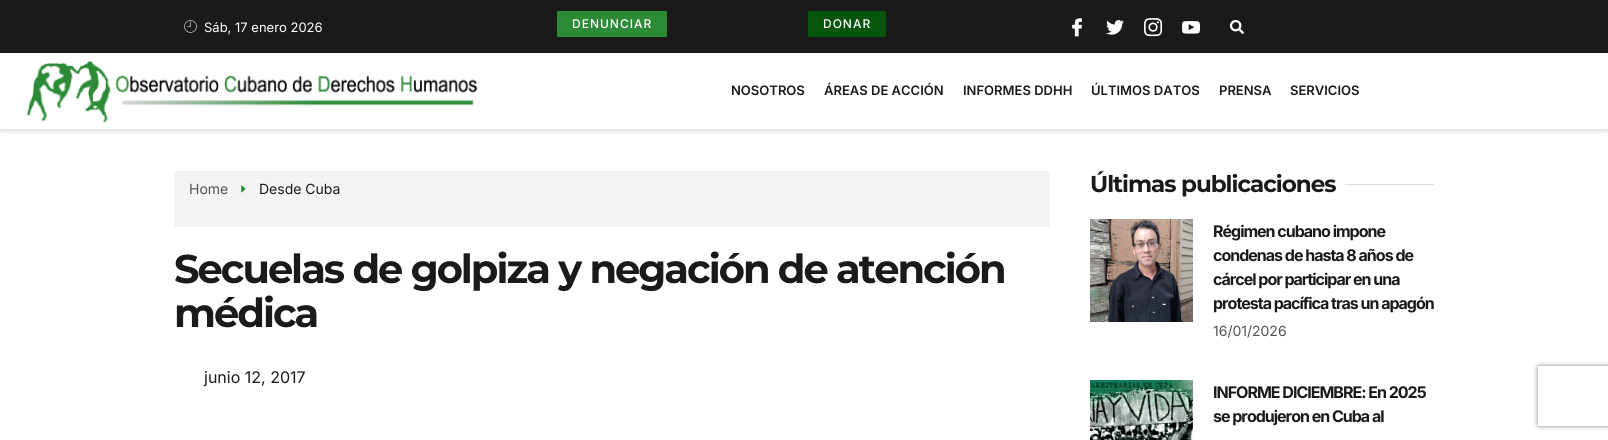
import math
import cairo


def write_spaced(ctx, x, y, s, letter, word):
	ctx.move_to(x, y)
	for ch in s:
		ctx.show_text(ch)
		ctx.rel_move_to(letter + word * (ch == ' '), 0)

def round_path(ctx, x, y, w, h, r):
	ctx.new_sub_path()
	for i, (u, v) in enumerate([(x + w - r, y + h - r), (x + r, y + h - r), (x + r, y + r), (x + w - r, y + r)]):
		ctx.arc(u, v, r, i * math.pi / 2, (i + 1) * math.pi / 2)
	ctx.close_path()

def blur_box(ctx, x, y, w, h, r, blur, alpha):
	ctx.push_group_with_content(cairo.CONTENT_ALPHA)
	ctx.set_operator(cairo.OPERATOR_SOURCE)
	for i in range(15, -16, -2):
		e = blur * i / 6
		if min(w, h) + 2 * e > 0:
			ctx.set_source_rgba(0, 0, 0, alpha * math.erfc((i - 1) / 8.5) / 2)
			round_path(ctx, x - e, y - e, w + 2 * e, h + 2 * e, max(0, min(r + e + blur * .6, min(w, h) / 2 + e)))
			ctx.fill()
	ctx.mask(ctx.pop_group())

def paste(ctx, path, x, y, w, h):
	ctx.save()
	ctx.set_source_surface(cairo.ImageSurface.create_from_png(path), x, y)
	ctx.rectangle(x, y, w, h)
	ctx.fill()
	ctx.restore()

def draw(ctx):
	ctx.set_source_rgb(1, 1, 1)
	ctx.paint()
	ctx.set_source_rgb(0.102, 0.102, 0.102)
	ctx.rectangle(0, 0, 1608, 53)
	ctx.fill()
	paste(ctx, 'media/1.png', 184, 20, 13, 13)
	ctx.select_font_face('Inter')
	ctx.set_font_size(13)
	ctx.set_source_rgb(1, 1, 1)
	ctx.move_to(204, 32)
	ctx.show_text('Sáb, 17 enero 2026')
	ctx.set_source_rgb(0.176, 0.541, 0.216)
	ctx.rectangle(557, 11, 110, 26)
	ctx.fill()
	ctx.select_font_face('Inter Medium')
	ctx.set_font_size(12)
	ctx.set_source_rgb(1, 1, 1)
	write_spaced(ctx, 572, 28, 'DENUNCIAR', 1, 0)
	ctx.set_source_rgb(0.035, 0.337, 0.051)
	ctx.rectangle(808, 11, 78, 26)
	ctx.fill()
	ctx.set_source_rgb(1, 1, 1)
	write_spaced(ctx, 823, 28, 'DONAR', 1, 0)
	paste(ctx, 'media/2.png', 1072, 18, 10, 19)
	paste(ctx, 'media/3.png', 1106, 20, 18, 15)
	paste(ctx, 'media/4.png', 1144, 18, 19, 19)
	paste(ctx, 'media/5.png', 1182, 21, 18, 13)
	paste(ctx, 'media/6.png', 1230, 20, 14, 14)
	ctx.save()
	ctx.set_fill_rule(cairo.FILL_RULE_EVEN_ODD)
	ctx.new_path()
	ctx.move_to(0, 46)
	ctx.line_to(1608, 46)
	ctx.line_to(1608, 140)
	ctx.line_to(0, 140)
	ctx.close_path()
	ctx.move_to(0, 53)
	ctx.line_to(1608, 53)
	ctx.line_to(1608, 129)
	ctx.line_to(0, 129)
	ctx.close_path()
	ctx.clip()
	ctx.set_source_rgb(0, 0, 0)
	blur_box(ctx, 0, 55, 1608, 76, 0, 2.5, 0.15)
	ctx.restore()
	paste(ctx, 'media/7.png', 26, 60, 452, 63)
	ctx.select_font_face('Inter SemiBold')
	ctx.set_font_size(13)
	ctx.set_source_rgb(0.102, 0.102, 0.102)
	for x, y, s in [
		(731, 95, 'NOSOTROS'),
		(824, 95, 'ÁREAS DE ACCIÓN'),
		(963, 95, 'INFORMES DDHH'),
		(1091, 95, 'ÚLTIMOS DATOS'),
		(1219, 95, 'PRENSA'),
		(1290, 95, 'SERVICIOS'),
	]:
		ctx.move_to(x, y)
		ctx.show_text(s)
	ctx.set_source_rgb(0.957, 0.957, 0.957)
	ctx.rectangle(174, 171, 876, 56)
	ctx.fill()
	ctx.select_font_face('Inter')
	ctx.set_font_size(14)
	ctx.set_source_rgb(0.325, 0.325, 0.325)
	ctx.move_to(189, 194)
	ctx.show_text('Home')
	paste(ctx, 'media/8.png', 241, 185, 5, 8)
	ctx.set_source_rgb(0.102, 0.102, 0.102)
	ctx.move_to(259, 194)
	ctx.show_text('Desde Cuba')
	ctx.select_font_face('Montserrat', cairo.FONT_SLANT_NORMAL, cairo.FONT_WEIGHT_BOLD)
	ctx.set_font_size(40)
	write_spaced(ctx, 174, 283, 'Secuelas de golpiza y negación de atención', -2, 0)
	write_spaced(ctx, 174, 327, 'médica', -2, 0)
	ctx.select_font_face('Inter')
	ctx.set_font_size(16)
	ctx.move_to(204, 383)
	ctx.show_text('junio 12, 2017')
	ctx.select_font_face('Montserrat', cairo.FONT_SLANT_NORMAL, cairo.FONT_WEIGHT_BOLD)
	ctx.set_font_size(23)
	write_spaced(ctx, 1090, 192, 'Últimas publicaciones', -1, 0)
	ctx.set_source_rgb(0.863, 0.863, 0.863)
	ctx.rectangle(1345, 184, 89, 1)
	ctx.fill()
	paste(ctx, 'media/9.png', 1090, 219, 103, 103)
	ctx.select_font_face('Inter', cairo.FONT_SLANT_NORMAL, cairo.FONT_WEIGHT_BOLD)
	ctx.set_font_size(16)
	ctx.set_source_rgb(0.102, 0.102, 0.102)
	for x, y, s in [
		(1213, 237, 'Régimen cubano impone'),
		(1213, 261, 'condenas de hasta 8 años de'),
		(1213, 285, 'cárcel por participar en una'),
		(1213, 309, 'protesta pacífica tras un apagón'),
	]:
		write_spaced(ctx, x, y, s, -1, 0)
	ctx.select_font_face('Inter')
	ctx.set_font_size(14)
	ctx.set_source_rgb(0.325, 0.325, 0.325)
	ctx.move_to(1213, 336)
	ctx.show_text('16/01/2026')
	paste(ctx, 'media/10.png', 1090, 380, 103, 60)
	ctx.select_font_face('Inter', cairo.FONT_SLANT_NORMAL, cairo.FONT_WEIGHT_BOLD)
	ctx.set_font_size(16)
	ctx.set_source_rgb(0.102, 0.102, 0.102)
	write_spaced(ctx, 1213, 398, 'INFORME DICIEMBRE: En 2025', -1, 0)
	write_spaced(ctx, 1213, 422, 'se produjeron en Cuba al', -1, 0)
	ctx.save()
	ctx.set_fill_rule(cairo.FILL_RULE_EVEN_ODD)
	ctx.new_path()
	ctx.move_to(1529, 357)
	ctx.line_to(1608, 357)
	ctx.line_to(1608, 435)
	ctx.line_to(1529, 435)
	ctx.close_path()
	ctx.move_to(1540, 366)
	ctx.line_to(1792, 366)
	ctx.curve_to(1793, 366, 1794, 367, 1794, 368)
	ctx.line_to(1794, 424)
	ctx.curve_to(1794, 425, 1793, 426, 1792, 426)
	ctx.line_to(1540, 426)
	ctx.curve_to(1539, 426, 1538, 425, 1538, 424)
	ctx.line_to(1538, 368)
	ctx.curve_to(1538, 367, 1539, 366, 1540, 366)
	ctx.close_path()
	ctx.clip()
	ctx.set_source_rgb(0.502, 0.502, 0.502)
	blur_box(ctx, 1538, 366, 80, 60, 2, 2.5, 1)
	ctx.restore()


surface = cairo.ImageSurface(cairo.FORMAT_RGB24, 1608, 440)
ctx = cairo.Context(surface)
options = cairo.FontOptions()
options.set_hint_metrics(cairo.HINT_METRICS_OFF)
options.set_hint_style(cairo.HINT_STYLE_NONE)
ctx.set_font_options(options)
ctx.set_miter_limit(4)
draw(ctx)
surface.write_to_png('image.png')
